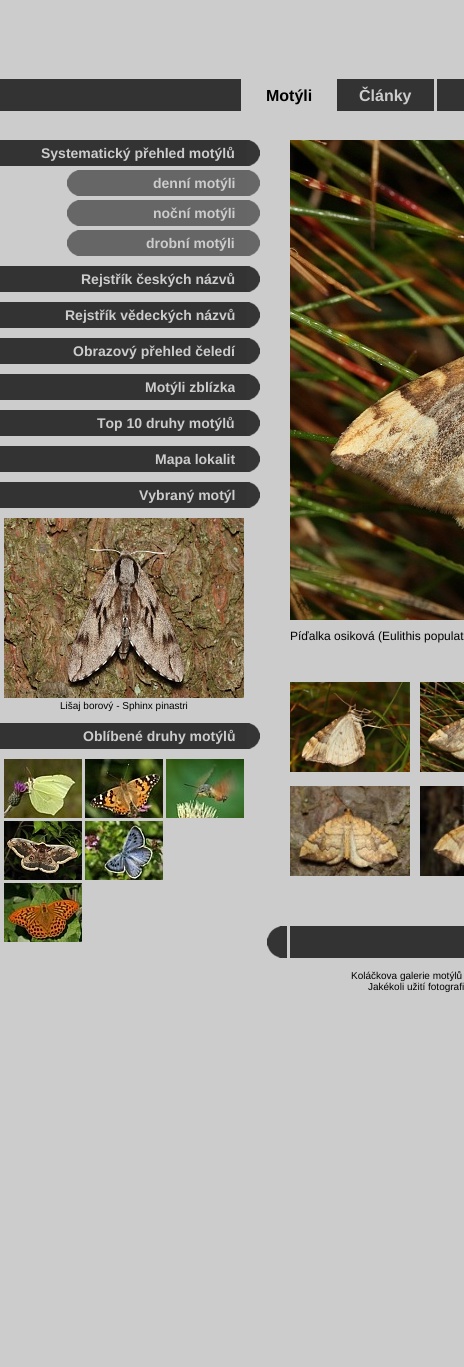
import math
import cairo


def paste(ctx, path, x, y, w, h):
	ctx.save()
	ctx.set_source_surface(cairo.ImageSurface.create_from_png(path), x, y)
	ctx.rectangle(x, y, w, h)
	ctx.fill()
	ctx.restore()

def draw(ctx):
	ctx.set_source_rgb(0.8, 0.8, 0.8)
	ctx.paint()
	ctx.set_source_rgb(0.2, 0.2, 0.2)
	ctx.rectangle(0, 79, 464, 32)
	ctx.fill()
	ctx.set_source_rgb(0.8, 0.8, 0.8)
	ctx.rectangle(241, 79, 96, 32)
	ctx.rectangle(434, 79, 3, 32)
	ctx.fill()
	ctx.select_font_face('Liberation Sans', cairo.FONT_SLANT_NORMAL, cairo.FONT_WEIGHT_BOLD)
	ctx.set_font_size(16)
	ctx.move_to(359, 101)
	ctx.show_text('Články')
	ctx.set_source_rgb(0, 0, 0)
	ctx.move_to(266, 101)
	ctx.show_text('Motýli')
	ctx.set_source_rgb(0.2, 0.2, 0.2)
	ctx.rectangle(0, 140, 247, 26)
	ctx.fill()
	ctx.set_font_size(14)
	ctx.set_source_rgb(0.8, 0.8, 0.8)
	ctx.move_to(41, 158)
	ctx.show_text('Systematický přehled motýlů')
	paste(ctx, 'media/1.png', 247, 140, 13, 26)
	paste(ctx, 'media/2.png', 67, 170, 13, 26)
	ctx.set_source_rgb(0.4, 0.4, 0.4)
	ctx.rectangle(80, 170, 167, 26)
	ctx.fill()
	ctx.set_source_rgb(0.8, 0.8, 0.8)
	ctx.move_to(153, 188)
	ctx.show_text('denní motýli')
	paste(ctx, 'media/3.png', 247, 170, 13, 26)
	paste(ctx, 'media/2.png', 67, 200, 13, 26)
	ctx.set_source_rgb(0.4, 0.4, 0.4)
	ctx.rectangle(80, 200, 167, 26)
	ctx.fill()
	ctx.set_source_rgb(0.8, 0.8, 0.8)
	ctx.move_to(153, 218)
	ctx.show_text('noční motýli')
	paste(ctx, 'media/3.png', 247, 200, 13, 26)
	paste(ctx, 'media/2.png', 67, 230, 13, 26)
	ctx.set_source_rgb(0.4, 0.4, 0.4)
	ctx.rectangle(80, 230, 167, 26)
	ctx.fill()
	ctx.set_source_rgb(0.8, 0.8, 0.8)
	ctx.move_to(146, 248)
	ctx.show_text('drobní motýli')
	paste(ctx, 'media/3.png', 247, 230, 13, 26)
	ctx.set_source_rgb(0.2, 0.2, 0.2)
	ctx.rectangle(0, 266, 247, 26)
	ctx.fill()
	ctx.set_source_rgb(0.8, 0.8, 0.8)
	ctx.move_to(81, 284)
	ctx.show_text('Rejstřík českých názvů')
	paste(ctx, 'media/1.png', 247, 266, 13, 26)
	ctx.set_source_rgb(0.2, 0.2, 0.2)
	ctx.rectangle(0, 302, 247, 26)
	ctx.fill()
	ctx.set_source_rgb(0.8, 0.8, 0.8)
	ctx.move_to(65, 320)
	ctx.show_text('Rejstřík vědeckých názvů')
	paste(ctx, 'media/1.png', 247, 302, 13, 26)
	ctx.set_source_rgb(0.2, 0.2, 0.2)
	ctx.rectangle(0, 338, 247, 26)
	ctx.fill()
	ctx.set_source_rgb(0.8, 0.8, 0.8)
	ctx.move_to(73, 356)
	ctx.show_text('Obrazový přehled čeledí')
	paste(ctx, 'media/1.png', 247, 338, 13, 26)
	ctx.set_source_rgb(0.2, 0.2, 0.2)
	ctx.rectangle(0, 374, 247, 26)
	ctx.fill()
	ctx.set_source_rgb(0.8, 0.8, 0.8)
	ctx.move_to(145, 392)
	ctx.show_text('Motýli zblízka')
	paste(ctx, 'media/1.png', 247, 374, 13, 26)
	ctx.set_source_rgb(0.2, 0.2, 0.2)
	ctx.rectangle(0, 410, 247, 26)
	ctx.fill()
	ctx.set_source_rgb(0.8, 0.8, 0.8)
	ctx.move_to(97, 428)
	ctx.show_text('Top 10 druhy motýlů')
	paste(ctx, 'media/1.png', 247, 410, 13, 26)
	ctx.set_source_rgb(0.2, 0.2, 0.2)
	ctx.rectangle(0, 446, 247, 26)
	ctx.fill()
	ctx.set_source_rgb(0.8, 0.8, 0.8)
	ctx.move_to(155, 464)
	ctx.show_text('Mapa lokalit')
	paste(ctx, 'media/1.png', 247, 446, 13, 26)
	ctx.set_source_rgb(0.2, 0.2, 0.2)
	ctx.rectangle(0, 482, 247, 26)
	ctx.fill()
	ctx.set_source_rgb(0.8, 0.8, 0.8)
	ctx.move_to(139, 500)
	ctx.show_text('Vybraný motýl')
	paste(ctx, 'media/1.png', 247, 482, 13, 26)
	paste(ctx, 'media/4.png', 4, 518, 240, 180)
	ctx.select_font_face('Liberation Sans')
	ctx.set_font_size(10)
	ctx.set_source_rgb(0, 0, 0)
	ctx.move_to(60, 709)
	ctx.show_text('Lišaj borový - Sphinx pinastri')
	ctx.set_source_rgb(0.2, 0.2, 0.2)
	ctx.rectangle(0, 723, 247, 26)
	ctx.fill()
	ctx.select_font_face('Liberation Sans', cairo.FONT_SLANT_NORMAL, cairo.FONT_WEIGHT_BOLD)
	ctx.set_font_size(14)
	ctx.set_source_rgb(0.8, 0.8, 0.8)
	ctx.move_to(83, 741)
	ctx.show_text('Oblíbené druhy motýlů')
	paste(ctx, 'media/1.png', 247, 723, 13, 26)
	paste(ctx, 'media/5.png', 4, 759, 78, 59)
	paste(ctx, 'media/6.png', 85, 759, 78, 59)
	paste(ctx, 'media/7.png', 166, 759, 78, 59)
	paste(ctx, 'media/8.png', 4, 821, 78, 59)
	paste(ctx, 'media/9.png', 85, 821, 78, 59)
	paste(ctx, 'media/10.png', 4, 883, 78, 59)
	paste(ctx, 'media/11.png', 290, 140, 174, 480)
	ctx.select_font_face('Liberation Sans')
	ctx.set_font_size(12)
	ctx.set_source_rgb(0, 0, 0)
	ctx.move_to(290, 640)
	ctx.show_text('Píďalka osiková (Eulithis populat')
	paste(ctx, 'media/12.png', 290, 682, 120, 90)
	paste(ctx, 'media/13.png', 420, 682, 44, 90)
	paste(ctx, 'media/14.png', 290, 786, 120, 90)
	paste(ctx, 'media/15.png', 420, 786, 44, 90)
	ctx.set_source_rgb(0.2, 0.2, 0.2)
	ctx.rectangle(283, 926, 4, 32)
	ctx.fill()
	paste(ctx, 'media/16.png', 267, 926, 16, 32)
	ctx.rectangle(290, 926, 174, 32)
	ctx.fill()
	ctx.set_font_size(10)
	ctx.set_source_rgb(0, 0, 0)
	ctx.move_to(351, 979)
	ctx.show_text('Koláčkova galerie motýlů')
	ctx.move_to(368, 990)
	ctx.show_text('Jakékoli užití fotografi')


surface = cairo.ImageSurface(cairo.FORMAT_RGB24, 464, 1367)
ctx = cairo.Context(surface)
options = cairo.FontOptions()
options.set_hint_metrics(cairo.HINT_METRICS_OFF)
options.set_hint_style(cairo.HINT_STYLE_NONE)
ctx.set_font_options(options)
ctx.set_miter_limit(4)
draw(ctx)
surface.write_to_png('image.png')
